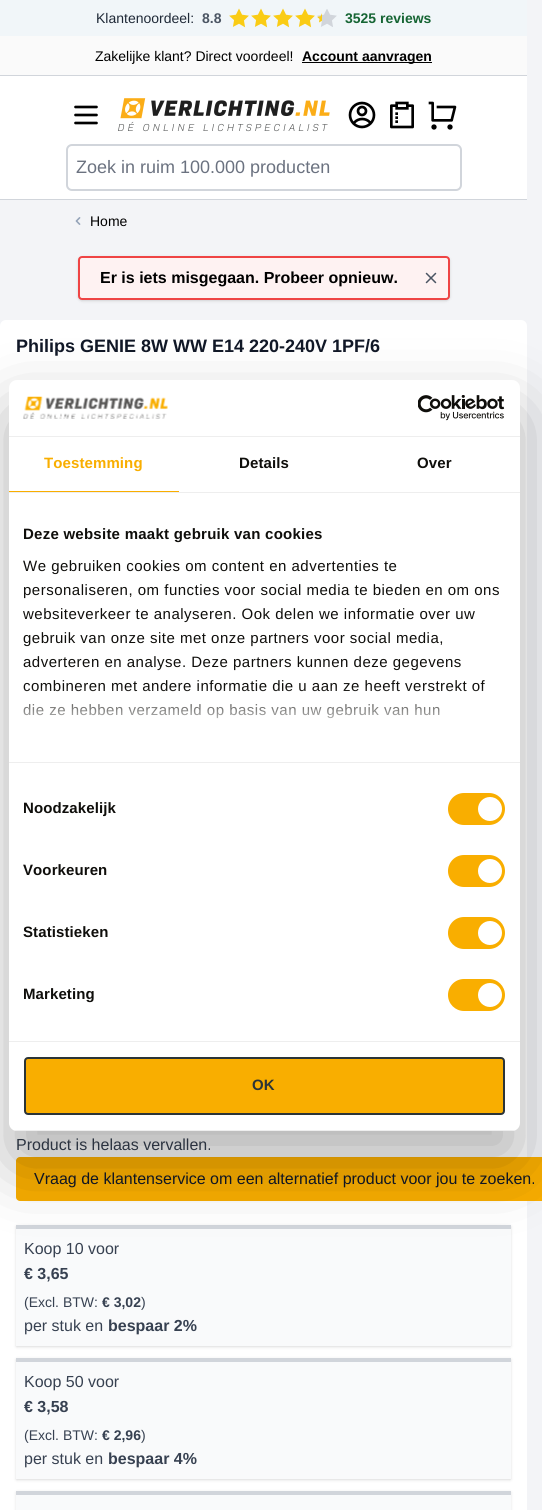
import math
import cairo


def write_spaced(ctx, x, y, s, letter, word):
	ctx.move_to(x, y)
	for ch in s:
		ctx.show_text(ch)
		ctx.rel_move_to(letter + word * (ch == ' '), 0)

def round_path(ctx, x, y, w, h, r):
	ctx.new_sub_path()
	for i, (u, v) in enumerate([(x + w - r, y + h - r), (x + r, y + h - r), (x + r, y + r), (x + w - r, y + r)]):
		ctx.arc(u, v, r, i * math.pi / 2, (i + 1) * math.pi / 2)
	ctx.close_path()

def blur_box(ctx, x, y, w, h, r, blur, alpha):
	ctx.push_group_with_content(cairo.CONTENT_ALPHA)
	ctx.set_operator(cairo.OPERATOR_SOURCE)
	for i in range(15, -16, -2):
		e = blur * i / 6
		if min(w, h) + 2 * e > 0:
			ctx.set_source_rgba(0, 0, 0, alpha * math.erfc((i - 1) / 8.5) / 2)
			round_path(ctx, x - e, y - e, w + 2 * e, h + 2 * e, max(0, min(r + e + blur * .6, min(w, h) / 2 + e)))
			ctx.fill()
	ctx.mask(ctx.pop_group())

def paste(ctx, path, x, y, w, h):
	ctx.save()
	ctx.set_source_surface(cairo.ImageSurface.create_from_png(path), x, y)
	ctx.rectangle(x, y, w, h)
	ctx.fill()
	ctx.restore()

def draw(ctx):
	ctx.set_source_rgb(0.953, 0.957, 0.965)
	ctx.paint()
	ctx.set_source_rgb(0.945, 0.961, 0.976)
	ctx.rectangle(0, 0, 527, 36)
	ctx.fill()
	ctx.select_font_face('Liberation Sans')
	ctx.set_font_size(14)
	ctx.set_source_rgb(0.122, 0.161, 0.216)
	ctx.move_to(96, 23)
	ctx.show_text('Klantenoordeel:')
	ctx.select_font_face('Liberation Sans', cairo.FONT_SLANT_NORMAL, cairo.FONT_WEIGHT_BOLD)
	ctx.set_source_rgb(0.294, 0.333, 0.388)
	ctx.move_to(202, 23)
	ctx.show_text('8.8')
	paste(ctx, 'media/1.png', 229, 8, 20, 20)
	paste(ctx, 'media/1.png', 251, 8, 20, 20)
	paste(ctx, 'media/1.png', 273, 8, 20, 20)
	paste(ctx, 'media/1.png', 295, 8, 20, 20)
	paste(ctx, 'media/2.png', 317, 9, 20, 18)
	paste(ctx, 'media/3.png', 317, 13, 5, 10)
	ctx.set_source_rgb(0.086, 0.396, 0.204)
	ctx.move_to(345, 23)
	ctx.show_text('3525 reviews')
	ctx.set_source_rgb(0.98, 0.98, 0.98)
	ctx.rectangle(0, 36, 527, 39)
	ctx.fill()
	ctx.set_source_rgb(0.82, 0.835, 0.859)
	ctx.rectangle(0, 75, 527, 1)
	ctx.fill()
	ctx.select_font_face('Liberation Sans')
	ctx.set_source_rgb(0, 0, 0)
	ctx.move_to(95, 61)
	ctx.show_text('Zakelijke klant? Direct voordeel!')
	ctx.rectangle(302, 62, 130, 1)
	ctx.fill()
	ctx.select_font_face('Liberation Sans', cairo.FONT_SLANT_NORMAL, cairo.FONT_WEIGHT_BOLD)
	ctx.move_to(302, 61)
	ctx.show_text('Account aanvragen')
	ctx.set_source_rgb(1, 1, 1)
	ctx.rectangle(0, 76, 527, 123)
	ctx.fill()
	ctx.set_source_rgb(0.82, 0.835, 0.859)
	ctx.rectangle(0, 199, 527, 1)
	ctx.fill()
	ctx.new_path()
	ctx.move_to(75.5, 107)
	ctx.line_to(96.5, 107)
	ctx.move_to(75.5, 115)
	ctx.line_to(96.5, 115)
	ctx.move_to(75.5, 123)
	ctx.line_to(96.5, 123)
	ctx.set_source_rgb(0, 0, 0)
	ctx.set_line_width(2.7)
	ctx.set_line_cap(cairo.LINE_CAP_ROUND)
	ctx.set_line_join(cairo.LINE_JOIN_ROUND)
	ctx.stroke()
	paste(ctx, 'media/4.png', 118, 98, 212, 34)
	paste(ctx, 'media/5.png', 348, 101, 28, 28)
	paste(ctx, 'media/6.png', 390, 101, 24, 28)
	paste(ctx, 'media/7.png', 428, 101, 29, 29)
	round_path(ctx, 67, 145, 394, 45, 5)
	ctx.set_source_rgb(0.82, 0.835, 0.859)
	ctx.set_line_width(2)
	ctx.set_line_cap(cairo.LINE_CAP_BUTT)
	ctx.set_line_join(cairo.LINE_JOIN_MITER)
	ctx.stroke()
	ctx.select_font_face('Liberation Sans')
	ctx.set_font_size(18)
	ctx.set_source_rgb(0.42, 0.447, 0.502)
	ctx.move_to(76, 173)
	ctx.show_text('Zoek in ruim 100.000 producten')
	paste(ctx, 'media/8.png', 75, 217, 6, 8)
	ctx.set_font_size(14)
	ctx.set_source_rgb(0, 0, 0)
	ctx.move_to(90, 226)
	ctx.show_text('Home')
	ctx.set_source_rgb(0, 0, 0)
	blur_box(ctx, 79, 258, 370, 42, 3, 1, 0.1)
	blur_box(ctx, 78, 257, 372, 44, 4, 1.5, 0.1)
	ctx.set_source_rgb(0.996, 0.949, 0.949)
	round_path(ctx, 79, 257, 370, 42, 3)
	ctx.fill_preserve()
	ctx.set_source_rgb(0.937, 0.267, 0.267)
	ctx.stroke()
	ctx.select_font_face('Liberation Sans', cairo.FONT_SLANT_NORMAL, cairo.FONT_WEIGHT_BOLD)
	ctx.set_font_size(16)
	ctx.set_source_rgb(0, 0, 0)
	ctx.move_to(100, 283)
	ctx.show_text('Er is iets misgegaan. Probeer opnieuw.')
	ctx.new_path()
	ctx.move_to(426.5, 282.5)
	ctx.line_to(435.5, 273.5)
	ctx.move_to(426.5, 273.5)
	ctx.line_to(435.5, 282.5)
	ctx.set_source_rgb(0.294, 0.333, 0.388)
	ctx.set_line_width(1.5)
	ctx.set_line_cap(cairo.LINE_CAP_ROUND)
	ctx.set_line_join(cairo.LINE_JOIN_ROUND)
	ctx.stroke()
	ctx.set_source_rgb(1, 1, 1)
	round_path(ctx, 0, 320, 527, 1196, 6)
	ctx.fill()
	ctx.set_font_size(18)
	ctx.set_source_rgb(0.067, 0.094, 0.153)
	ctx.move_to(16, 352)
	ctx.show_text('Philips GENIE 8W WW E14 220-240V 1PF/6')
	ctx.select_font_face('Liberation Sans')
	ctx.set_font_size(16)
	ctx.set_source_rgb(0.216, 0.255, 0.318)
	ctx.move_to(16, 1150)
	ctx.show_text('Product is helaas vervallen.')
	ctx.set_source_rgb(0.98, 0.682, 0)
	round_path(ctx, 16, 1157, 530, 44, 4)
	ctx.fill()
	ctx.set_source_rgb(0.067, 0.094, 0.153)
	ctx.move_to(34, 1184)
	ctx.show_text('Vraag de klantenservice om een alternatief product voor jou te zoeken.')
	ctx.set_source_rgb(0, 0, 0)
	blur_box(ctx, 17, 1227, 493, 119, 0, 1, 0.1)
	blur_box(ctx, 16, 1226, 495, 121, 0, 1.5, 0.1)
	ctx.set_source_rgb(0.976, 0.98, 0.984)
	ctx.rectangle(16, 1229, 495, 117)
	ctx.fill()
	ctx.set_source_rgb(0.82, 0.835, 0.859)
	ctx.rectangle(16, 1225, 495, 4)
	ctx.fill()
	ctx.set_source_rgb(0.216, 0.255, 0.318)
	ctx.move_to(24, 1254)
	ctx.show_text('Koop 10 voor')
	ctx.select_font_face('Liberation Sans', cairo.FONT_SLANT_NORMAL, cairo.FONT_WEIGHT_BOLD)
	ctx.move_to(24, 1279)
	ctx.show_text('€ 3,65')
	ctx.select_font_face('Liberation Sans')
	ctx.set_font_size(14)
	ctx.move_to(24, 1307)
	ctx.show_text('(Excl. BTW:')
	ctx.select_font_face('Liberation Sans', cairo.FONT_SLANT_NORMAL, cairo.FONT_WEIGHT_BOLD)
	ctx.move_to(102, 1307)
	ctx.show_text('€ 3,02')
	ctx.select_font_face('Liberation Sans')
	ctx.move_to(141, 1307)
	ctx.show_text(')')
	ctx.set_font_size(16)
	ctx.move_to(24, 1331)
	ctx.show_text('per stuk en')
	ctx.select_font_face('Liberation Sans', cairo.FONT_SLANT_NORMAL, cairo.FONT_WEIGHT_BOLD)
	ctx.move_to(108, 1331)
	ctx.show_text('bespaar 2%')
	ctx.set_source_rgb(0, 0, 0)
	blur_box(ctx, 17, 1360, 493, 119, 0, 1, 0.1)
	blur_box(ctx, 16, 1359, 495, 121, 0, 1.5, 0.1)
	ctx.set_source_rgb(0.976, 0.98, 0.984)
	ctx.rectangle(16, 1362, 495, 117)
	ctx.fill()
	ctx.set_source_rgb(0.82, 0.835, 0.859)
	ctx.rectangle(16, 1358, 495, 4)
	ctx.fill()
	ctx.select_font_face('Liberation Sans')
	ctx.set_source_rgb(0.216, 0.255, 0.318)
	ctx.move_to(24, 1387)
	ctx.show_text('Koop 50 voor')
	ctx.select_font_face('Liberation Sans', cairo.FONT_SLANT_NORMAL, cairo.FONT_WEIGHT_BOLD)
	ctx.move_to(24, 1412)
	ctx.show_text('€ 3,58')
	ctx.select_font_face('Liberation Sans')
	ctx.set_font_size(14)
	ctx.move_to(24, 1440)
	ctx.show_text('(Excl. BTW:')
	ctx.select_font_face('Liberation Sans', cairo.FONT_SLANT_NORMAL, cairo.FONT_WEIGHT_BOLD)
	ctx.move_to(102, 1440)
	ctx.show_text('€ 2,96')
	ctx.select_font_face('Liberation Sans')
	ctx.move_to(141, 1440)
	ctx.show_text(')')
	ctx.set_font_size(16)
	ctx.move_to(24, 1464)
	ctx.show_text('per stuk en')
	ctx.select_font_face('Liberation Sans', cairo.FONT_SLANT_NORMAL, cairo.FONT_WEIGHT_BOLD)
	ctx.move_to(108, 1464)
	ctx.show_text('bespaar 4%')
	ctx.set_source_rgb(0, 0, 0)
	blur_box(ctx, 16, 1492, 495, 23, 0, 1.5, 0.1)
	ctx.set_source_rgb(0.976, 0.98, 0.984)
	ctx.rectangle(16, 1495, 495, 15)
	ctx.fill()
	ctx.set_source_rgb(0.82, 0.835, 0.859)
	ctx.rectangle(16, 1491, 495, 4)
	ctx.fill()
	ctx.set_source_rgb(0, 0, 0)
	blur_box(ctx, 9, 412, 511, 751, 8, 34, 0.3)
	ctx.set_source_rgb(1, 1, 1)
	round_path(ctx, 9, 380, 511, 751, 8)
	ctx.fill()
	ctx.set_source_rgb(0.933, 0.933, 0.933)
	ctx.rectangle(9, 436, 511, 1)
	ctx.fill()
	paste(ctx, 'media/9.png', 23, 396, 145, 23)
	paste(ctx, 'media/10.png', 418, 395, 87, 26)
	ctx.rectangle(9, 492, 511, 1)
	ctx.fill()
	ctx.set_source_rgb(0.976, 0.682, 0)
	ctx.rectangle(9, 491, 170, 1)
	ctx.fill()
	ctx.set_font_size(15)
	write_spaced(ctx, 44, 468, 'Toestemming', 0.1, 0)
	ctx.set_source_rgb(0.059, 0.055, 0.043)
	write_spaced(ctx, 239, 468, 'Details', 0.1, 0)
	write_spaced(ctx, 417, 468, 'Over', 0.1, 0)
	ctx.set_source_rgb(0.933, 0.933, 0.933)
	ctx.rectangle(9, 762, 511, 1)
	ctx.fill()
	ctx.set_source_rgb(0.059, 0.055, 0.043)
	write_spaced(ctx, 23, 539, 'Deze website maakt gebruik van cookies', 0.25, 0)
	ctx.select_font_face('Liberation Sans')
	for x, y, s in [
		(23, 571, 'We gebruiken cookies om content en advertenties te'),
		(23, 595, 'personaliseren, om functies voor social media te bieden en om ons'),
		(23, 619, 'websiteverkeer te analyseren. Ook delen we informatie over uw'),
		(23, 643, 'gebruik van onze site met onze partners voor social media,'),
		(23, 667, 'adverteren en analyse. Deze partners kunnen deze gegevens'),
		(23, 691, 'combineren met andere informatie die u aan ze heeft verstrekt of'),
		(23, 715, 'die ze hebben verzameld op basis van uw gebruik van hun'),
	]:
		write_spaced(ctx, x, y, s, 0.5, 0)
	gradient = cairo.LinearGradient(258, 762, 258, 687)
	gradient.add_color_stop_rgba(0, 1, 1, 1, 1)
	gradient.add_color_stop_rgba(0.5, 1, 1, 1, 0.8)
	gradient.add_color_stop_rgba(1, 1, 1, 1, 0)
	ctx.set_source(gradient)
	ctx.rectangle(23, 688, 461, 31)
	ctx.fill()
	ctx.set_source_rgb(0.933, 0.933, 0.933)
	ctx.rectangle(9, 1041, 511, 1)
	ctx.fill()
	ctx.select_font_face('Liberation Sans', cairo.FONT_SLANT_NORMAL, cairo.FONT_WEIGHT_BOLD)
	ctx.set_source_rgb(0.059, 0.055, 0.043)
	write_spaced(ctx, 23, 813, 'Noodzakelijk', 0.1, 0)
	ctx.set_source_rgb(0.976, 0.682, 0)
	round_path(ctx, 448, 793, 57, 32, 16)
	ctx.fill()
	ctx.set_source_rgb(1, 1, 1)
	ctx.arc(490, 809, 12, 0, 2 * math.pi)
	ctx.fill()
	ctx.set_source_rgb(0.059, 0.055, 0.043)
	write_spaced(ctx, 23, 875, 'Voorkeuren', 0.1, 0)
	ctx.set_source_rgb(0.976, 0.682, 0)
	round_path(ctx, 448, 855, 57, 32, 16)
	ctx.fill()
	ctx.set_source_rgb(1, 1, 1)
	ctx.arc(490, 871, 12, 0, 2 * math.pi)
	ctx.fill()
	ctx.set_source_rgb(0.059, 0.055, 0.043)
	write_spaced(ctx, 23, 937, 'Statistieken', 0.1, 0)
	ctx.set_source_rgb(0.976, 0.682, 0)
	round_path(ctx, 448, 917, 57, 32, 16)
	ctx.fill()
	ctx.set_source_rgb(1, 1, 1)
	ctx.arc(490, 933, 12, 0, 2 * math.pi)
	ctx.fill()
	ctx.set_source_rgb(0.059, 0.055, 0.043)
	write_spaced(ctx, 23, 999, 'Marketing', 0.1, 0)
	ctx.set_source_rgb(0.976, 0.682, 0)
	round_path(ctx, 448, 979, 57, 32, 16)
	ctx.fill()
	ctx.set_source_rgb(1, 1, 1)
	ctx.arc(490, 995, 12, 0, 2 * math.pi)
	ctx.fill()
	ctx.save()
	round_path(ctx, 9, 380, 511, 751, 8)
	ctx.clip()
	ctx.set_source_rgb(0.933, 0.933, 0.933)
	ctx.rectangle(9, 1130, 511, 1)
	ctx.fill()
	ctx.restore()
	ctx.set_source_rgb(0.976, 0.682, 0)
	round_path(ctx, 25, 1058, 479, 56, 3)
	ctx.fill_preserve()
	ctx.set_source_rgb(0.169, 0.204, 0.216)
	ctx.set_line_width(2)
	ctx.set_line_cap(cairo.LINE_CAP_BUTT)
	ctx.set_line_join(cairo.LINE_JOIN_MITER)
	ctx.stroke()
	write_spaced(ctx, 252, 1090, 'OK', 0.1, 0)


surface = cairo.ImageSurface(cairo.FORMAT_RGB24, 542, 1510)
ctx = cairo.Context(surface)
options = cairo.FontOptions()
options.set_hint_metrics(cairo.HINT_METRICS_OFF)
options.set_hint_style(cairo.HINT_STYLE_NONE)
ctx.set_font_options(options)
ctx.set_miter_limit(4)
draw(ctx)
surface.write_to_png('image.png')
